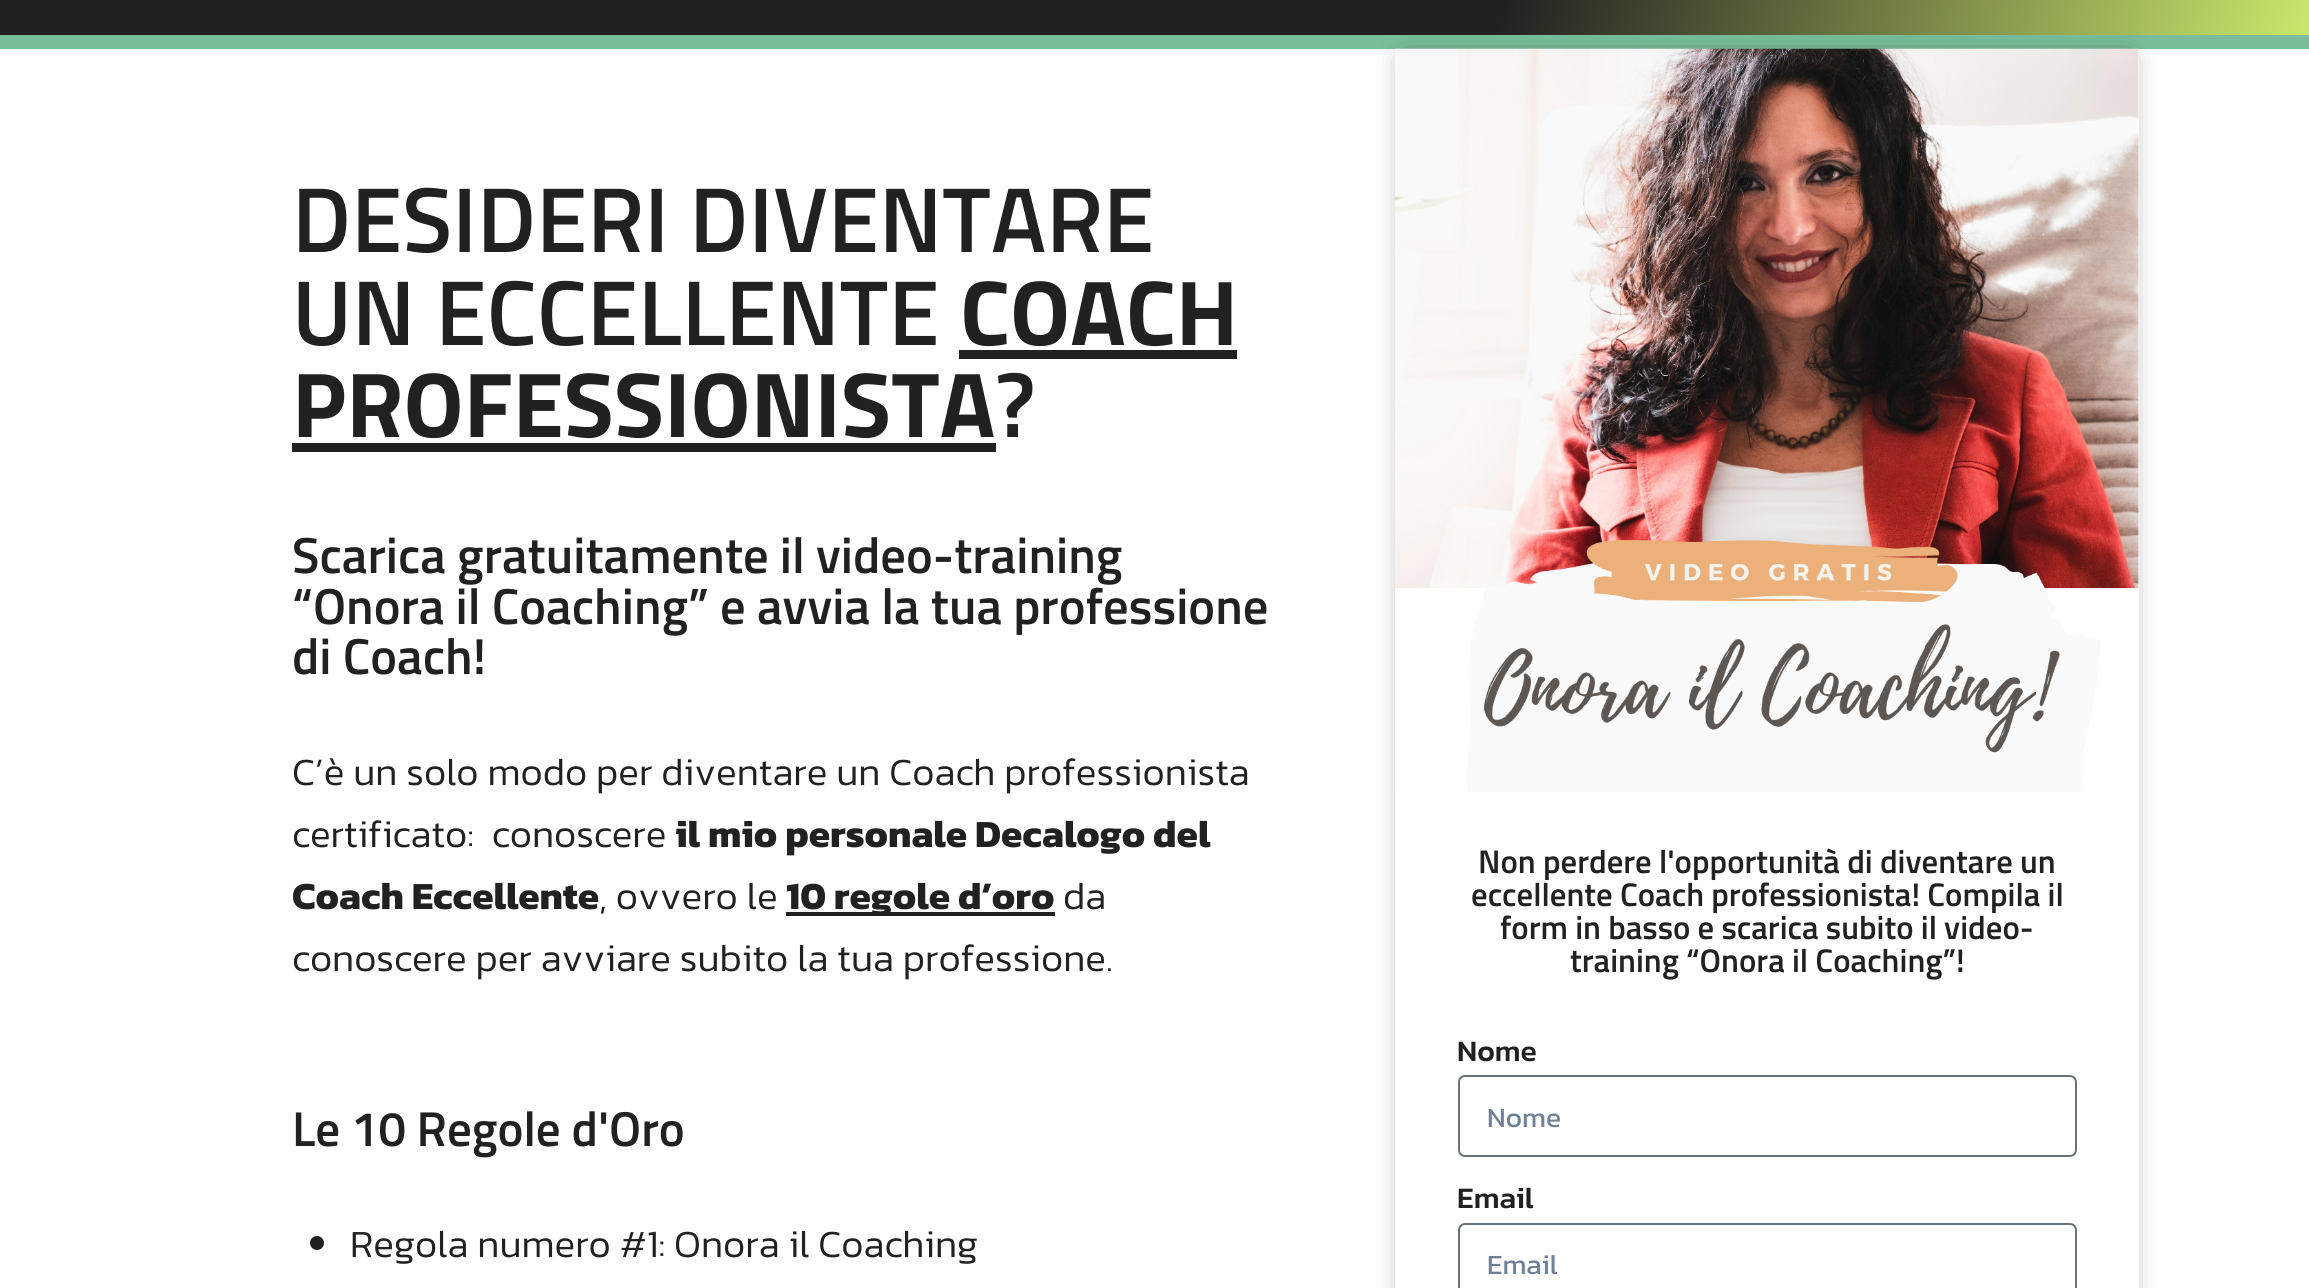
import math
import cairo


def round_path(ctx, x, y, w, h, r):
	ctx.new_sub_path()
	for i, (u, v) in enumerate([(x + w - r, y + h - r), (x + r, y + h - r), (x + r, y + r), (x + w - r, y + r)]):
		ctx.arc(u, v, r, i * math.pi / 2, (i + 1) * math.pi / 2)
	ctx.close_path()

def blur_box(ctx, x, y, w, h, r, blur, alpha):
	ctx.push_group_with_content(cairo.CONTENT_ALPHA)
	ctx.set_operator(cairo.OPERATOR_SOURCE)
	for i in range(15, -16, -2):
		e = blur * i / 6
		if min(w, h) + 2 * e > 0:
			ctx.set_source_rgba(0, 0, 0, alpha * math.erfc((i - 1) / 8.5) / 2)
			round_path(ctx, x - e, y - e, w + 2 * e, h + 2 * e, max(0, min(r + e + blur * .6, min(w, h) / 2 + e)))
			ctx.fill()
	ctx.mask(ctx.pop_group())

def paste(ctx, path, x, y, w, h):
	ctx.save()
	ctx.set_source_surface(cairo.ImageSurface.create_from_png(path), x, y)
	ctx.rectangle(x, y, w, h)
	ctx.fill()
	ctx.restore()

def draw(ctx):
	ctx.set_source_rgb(1, 1, 1)
	ctx.paint()
	gradient = cairo.LinearGradient(96, -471, 2214, 300)
	gradient.add_color_stop_rgba(0.66, 0.129, 0.129, 0.129, 1)
	gradient.add_color_stop_rgba(1, 0.796, 0.91, 0.42, 1)
	ctx.set_source(gradient)
	ctx.rectangle(0, 0, 2309, 35)
	ctx.fill()
	ctx.set_source_rgb(0.475, 0.741, 0.604)
	ctx.rectangle(0, 35, 2309, 14)
	ctx.fill()
	ctx.select_font_face('Titillium Web SemiBold')
	ctx.set_font_size(92.25)
	ctx.set_source_rgb(0.129, 0.129, 0.129)
	ctx.move_to(292, 252)
	ctx.show_text('DESIDERI DIVENTARE')
	ctx.move_to(292, 345)
	ctx.show_text('UN ECCELLENTE')
	ctx.select_font_face('Titillium Web', cairo.FONT_SLANT_NORMAL, cairo.FONT_WEIGHT_BOLD)
	ctx.move_to(960, 345)
	ctx.show_text('COACH')
	ctx.rectangle(959, 350, 278, 9)
	ctx.fill()
	ctx.move_to(292, 437)
	ctx.show_text('PROFESSIONISTA')
	ctx.rectangle(292, 443, 704, 9)
	ctx.fill()
	ctx.select_font_face('Titillium Web SemiBold')
	ctx.move_to(995, 437)
	ctx.show_text('?')
	ctx.set_font_size(50.6)
	for x, y, s in [
		(292, 573, 'Scarica gratuitamente il video-training'),
		(292, 624, '“Onora il Coaching” e avvia la tua professione'),
		(292, 674, 'di Coach!'),
	]:
		ctx.move_to(x, y)
		ctx.show_text(s)
	ctx.select_font_face('Kanit Light')
	ctx.set_font_size(38.7)
	ctx.move_to(292, 785)
	ctx.show_text('C’è un solo modo per diventare un Coach professionista')
	ctx.move_to(292, 847)
	ctx.show_text('certificato:  conoscere')
	ctx.select_font_face('Kanit', cairo.FONT_SLANT_NORMAL, cairo.FONT_WEIGHT_BOLD)
	ctx.move_to(675, 847)
	ctx.show_text('il mio personale Decalogo del')
	ctx.move_to(292, 909)
	ctx.show_text('Coach Eccellente')
	ctx.select_font_face('Kanit Light')
	ctx.move_to(599, 909)
	ctx.show_text(', ovvero le')
	ctx.rectangle(786, 912, 269, 4)
	ctx.fill()
	ctx.select_font_face('Kanit', cairo.FONT_SLANT_NORMAL, cairo.FONT_WEIGHT_BOLD)
	ctx.move_to(786, 909)
	ctx.show_text('10 regole d’oro')
	ctx.select_font_face('Kanit Light')
	ctx.move_to(1063, 909)
	ctx.show_text('da')
	ctx.move_to(292, 971)
	ctx.show_text('conoscere per avviare subito la tua professione.')
	ctx.select_font_face('Titillium Web SemiBold')
	ctx.set_font_size(49)
	ctx.move_to(292, 1146)
	ctx.show_text('Le 10 Regole d\'Oro')
	ctx.new_path()
	ctx.arc(317, 1243, 7, 0, 2 * math.pi)
	ctx.fill()
	ctx.select_font_face('Kanit Light')
	ctx.set_font_size(38.7)
	ctx.move_to(350, 1257)
	ctx.show_text('Regola numero #1: Onora il Coaching')
	ctx.save()
	ctx.set_fill_rule(cairo.FILL_RULE_EVEN_ODD)
	ctx.new_path()
	ctx.move_to(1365, 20)
	ctx.line_to(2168, 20)
	ctx.line_to(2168, 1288)
	ctx.line_to(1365, 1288)
	ctx.close_path()
	ctx.move_to(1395, 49)
	ctx.line_to(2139, 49)
	ctx.line_to(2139, 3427)
	ctx.line_to(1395, 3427)
	ctx.close_path()
	ctx.clip()
	ctx.set_source_rgb(0, 0, 0)
	blur_box(ctx, 1405, 60, 723, 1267, 0, 13, 0.5)
	ctx.restore()
	paste(ctx, 'media/1.png', 1394, 48, 745, 744)
	ctx.select_font_face('Titillium Web SemiBold')
	ctx.set_font_size(32.75)
	for x, y, s in [
		(1478, 873, 'Non perdere l\'opportunità di diventare un'),
		(1471, 906, 'eccellente Coach professionista! Compila il'),
		(1500, 939, 'form in basso e scarica subito il video-'),
		(1570, 972, 'training “Onora il Coaching”!'),
	]:
		ctx.move_to(x, y)
		ctx.show_text(s)
	ctx.select_font_face('Kanit Medium')
	ctx.set_font_size(30)
	ctx.move_to(1457, 1061)
	ctx.show_text('Nome')
	round_path(ctx, 1459, 1076, 617, 80, 6)
	ctx.set_source_rgb(0.412, 0.447, 0.49)
	ctx.stroke()
	ctx.select_font_face('Kanit')
	ctx.set_font_size(28)
	ctx.set_source_rgb(0.443, 0.502, 0.588)
	ctx.move_to(1487, 1127)
	ctx.show_text('Nome')
	ctx.select_font_face('Kanit Medium')
	ctx.set_font_size(30)
	ctx.set_source_rgb(0.129, 0.129, 0.129)
	ctx.move_to(1457, 1208)
	ctx.show_text('Email')
	round_path(ctx, 1459, 1224, 617, 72, 6)
	ctx.set_source_rgb(0.412, 0.447, 0.49)
	ctx.stroke()
	ctx.select_font_face('Kanit')
	ctx.set_font_size(28)
	ctx.set_source_rgb(0.443, 0.502, 0.588)
	ctx.move_to(1487, 1274)
	ctx.show_text('Email')


surface = cairo.ImageSurface(cairo.FORMAT_RGB24, 2309, 1288)
ctx = cairo.Context(surface)
options = cairo.FontOptions()
options.set_hint_metrics(cairo.HINT_METRICS_OFF)
options.set_hint_style(cairo.HINT_STYLE_NONE)
ctx.set_font_options(options)
ctx.set_miter_limit(4)
draw(ctx)
surface.write_to_png('image.png')
